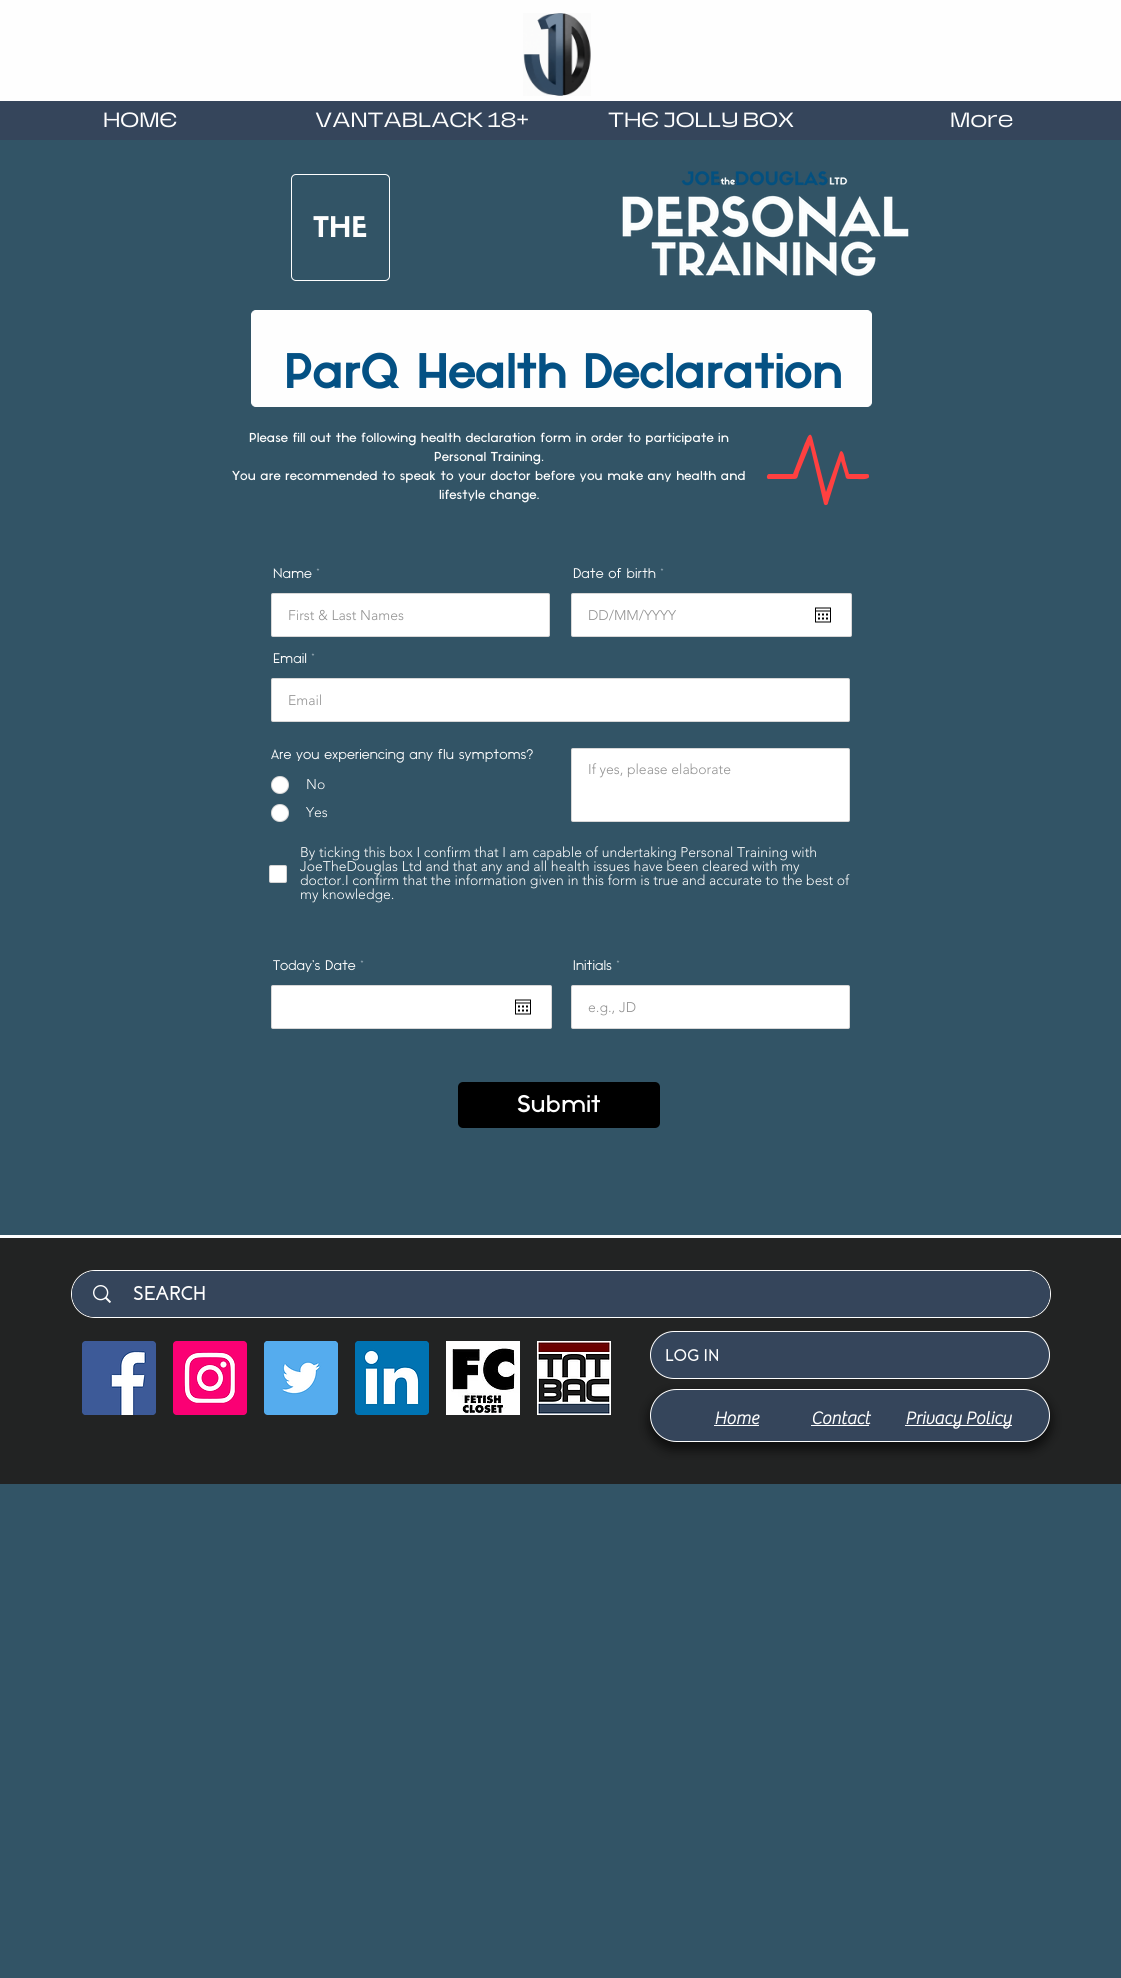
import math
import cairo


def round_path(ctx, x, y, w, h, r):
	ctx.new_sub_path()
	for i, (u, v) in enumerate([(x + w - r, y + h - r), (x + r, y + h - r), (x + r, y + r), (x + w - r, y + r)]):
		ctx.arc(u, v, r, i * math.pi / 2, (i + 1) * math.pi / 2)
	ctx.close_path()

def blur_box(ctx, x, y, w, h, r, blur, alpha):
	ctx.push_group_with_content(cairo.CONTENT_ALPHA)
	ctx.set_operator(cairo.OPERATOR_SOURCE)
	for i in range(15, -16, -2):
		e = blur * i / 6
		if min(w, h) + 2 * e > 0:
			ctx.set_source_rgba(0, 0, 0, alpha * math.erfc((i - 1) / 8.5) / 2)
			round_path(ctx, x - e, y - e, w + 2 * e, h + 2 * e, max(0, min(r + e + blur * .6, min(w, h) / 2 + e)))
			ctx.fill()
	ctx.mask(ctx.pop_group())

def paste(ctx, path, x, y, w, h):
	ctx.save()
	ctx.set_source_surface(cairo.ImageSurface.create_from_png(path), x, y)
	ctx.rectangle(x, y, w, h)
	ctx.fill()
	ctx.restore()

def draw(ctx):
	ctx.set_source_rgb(0.196, 0.329, 0.4)
	ctx.paint()
	ctx.set_source_rgb(0.996, 0.996, 0.996)
	ctx.rectangle(0, 0, 1121, 101)
	ctx.fill()
	paste(ctx, 'media/1.png', 523, 13, 68, 83)
	ctx.set_source_rgb(0.208, 0.271, 0.357)
	ctx.rectangle(0, 101, 1121, 39)
	ctx.fill()
	ctx.select_font_face('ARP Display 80')
	ctx.set_font_size(18)
	ctx.set_source_rgb(0.996, 0.996, 0.996)
	for x, y, s in [
		(103, 127, 'HOME'),
		(315, 127, 'VANTABLACK 18+'),
		(608, 127, 'THE JOLLY BOX'),
		(950, 127, 'More'),
	]:
		ctx.move_to(x, y)
		ctx.show_text(s)
	round_path(ctx, 291.5, 174.5, 98, 106, 4.5)
	ctx.set_line_width(1)
	ctx.stroke()
	ctx.select_font_face('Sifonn', cairo.FONT_SLANT_NORMAL, cairo.FONT_WEIGHT_BOLD)
	ctx.set_font_size(28)
	ctx.move_to(313, 237)
	ctx.show_text('THE')
	paste(ctx, 'media/2.png', 622, 171, 287, 106)
	round_path(ctx, 251.5, 310.5, 620, 96, 4.5)
	ctx.fill_preserve()
	ctx.stroke()
	ctx.select_font_face('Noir', cairo.FONT_SLANT_NORMAL, cairo.FONT_WEIGHT_BOLD)
	ctx.set_font_size(48)
	ctx.set_source_rgb(0.016, 0.318, 0.518)
	ctx.move_to(284, 388)
	ctx.show_text('ParQ Health Declaration')
	ctx.select_font_face('Noir Medium')
	ctx.set_font_size(13)
	ctx.set_source_rgb(0.996, 0.996, 0.996)
	for x, y, s in [
		(249, 442, 'Please fill out the following health declaration form in order to participate in'),
		(434, 461, 'Personal Training.'),
		(232, 480, 'You are recommended to speak to your doctor before you make any health and'),
		(439, 499, 'lifestyle change.'),
	]:
		ctx.move_to(x, y)
		ctx.show_text(s)
	ctx.set_source_rgb(1, 0.251, 0.251)
	ctx.new_path()
	ctx.move_to(867, 474)
	ctx.line_to(849, 474)
	ctx.line_to(845, 460)
	ctx.curve_to(845, 459, 843, 448, 840, 452)
	ctx.line_to(826, 492)
	ctx.line_to(812, 437)
	ctx.line_to(811, 435)
	ctx.curve_to(808, 433, 806, 442, 805, 443)
	ctx.line_to(793, 474)
	ctx.line_to(769, 474)
	ctx.curve_to(767, 474, 766, 478, 768, 479)
	ctx.line_to(791, 479)
	ctx.curve_to(798, 479, 797, 479, 799, 472)
	ctx.line_to(810, 445)
	ctx.line_to(824, 504)
	ctx.curve_to(825, 506, 828, 505, 828, 503)
	ctx.line_to(841, 461)
	ctx.line_to(845, 474)
	ctx.curve_to(846, 479, 846, 479, 851, 479)
	ctx.line_to(857, 479)
	ctx.curve_to(859, 479, 868, 480, 869, 477)
	ctx.curve_to(869, 475, 869, 474, 867, 474)
	ctx.close_path()
	ctx.fill()
	ctx.select_font_face('Noir')
	ctx.set_font_size(14)
	ctx.set_source_rgb(0.996, 0.996, 0.996)
	ctx.move_to(273, 578)
	ctx.show_text('Name')
	ctx.set_source_rgb(0.58, 0.659, 0.702)
	ctx.move_to(316, 578)
	ctx.show_text('*')
	ctx.set_source_rgb(1, 1, 1)
	round_path(ctx, 271, 593, 279, 44, 2)
	ctx.fill()
	round_path(ctx, 271.5, 593.5, 278, 43, 1.5)
	ctx.set_source_rgba(0.224, 0.224, 0.224, 0.2)
	ctx.stroke()
	ctx.select_font_face('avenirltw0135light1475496 Light')
	ctx.set_source_rgb(0.569, 0.569, 0.569)
	ctx.move_to(288, 620)
	ctx.show_text('First & Last Names')
	ctx.select_font_face('Noir')
	ctx.set_source_rgb(0.996, 0.996, 0.996)
	ctx.move_to(573, 578)
	ctx.show_text('Date of birth')
	ctx.set_source_rgb(0.58, 0.659, 0.702)
	ctx.move_to(660, 578)
	ctx.show_text('*')
	ctx.set_source_rgb(1, 1, 1)
	round_path(ctx, 571, 593, 281, 44, 2)
	ctx.fill()
	round_path(ctx, 571.5, 593.5, 280, 43, 1.5)
	ctx.set_source_rgba(0.224, 0.224, 0.224, 0.2)
	ctx.stroke()
	ctx.select_font_face('avenirltw0135light1475496 Light')
	ctx.set_source_rgb(0.569, 0.569, 0.569)
	ctx.move_to(588, 620)
	ctx.show_text('DD/MM/YYYY')
	paste(ctx, 'media/3.png', 815, 607, 16, 16)
	ctx.select_font_face('Noir')
	ctx.set_source_rgb(0.996, 0.996, 0.996)
	ctx.move_to(273, 663)
	ctx.show_text('Email')
	ctx.set_source_rgb(0.58, 0.659, 0.702)
	ctx.move_to(311, 663)
	ctx.show_text('*')
	ctx.set_source_rgb(1, 1, 1)
	round_path(ctx, 271, 678, 579, 44, 2)
	ctx.fill()
	round_path(ctx, 271.5, 678.5, 578, 43, 1.5)
	ctx.set_source_rgba(0.224, 0.224, 0.224, 0.2)
	ctx.stroke()
	ctx.select_font_face('avenirltw0135light1475496 Light')
	ctx.set_source_rgb(0.569, 0.569, 0.569)
	ctx.move_to(288, 705)
	ctx.show_text('Email')
	ctx.select_font_face('Noir')
	ctx.set_source_rgb(0.996, 0.996, 0.996)
	ctx.move_to(271, 759)
	ctx.show_text('Are you experiencing any flu symptoms?')
	ctx.set_source_rgb(1, 1, 1)
	ctx.new_path()
	ctx.arc(280, 785, 9, 0, 2 * math.pi)
	ctx.fill()
	ctx.arc(280, 785, 8.5, 0, 2 * math.pi)
	ctx.set_source_rgba(0.224, 0.224, 0.224, 0.2)
	ctx.stroke()
	ctx.select_font_face('avenirltw0135light1475496 Light')
	ctx.set_source_rgb(0.996, 0.996, 0.996)
	ctx.move_to(306, 789)
	ctx.show_text('No')
	ctx.set_source_rgb(1, 1, 1)
	ctx.new_path()
	ctx.arc(280, 813, 9, 0, 2 * math.pi)
	ctx.fill()
	ctx.arc(280, 813, 8.5, 0, 2 * math.pi)
	ctx.set_source_rgba(0.224, 0.224, 0.224, 0.2)
	ctx.stroke()
	ctx.set_source_rgb(0.996, 0.996, 0.996)
	ctx.move_to(306, 817)
	ctx.show_text('Yes')
	ctx.set_source_rgb(1, 1, 1)
	round_path(ctx, 571, 748, 279, 74, 2)
	ctx.fill()
	round_path(ctx, 571.5, 748.5, 278, 73, 1.5)
	ctx.set_source_rgba(0.224, 0.224, 0.224, 0.2)
	ctx.stroke()
	ctx.set_source_rgb(0.569, 0.569, 0.569)
	ctx.move_to(588, 774)
	ctx.show_text('If yes, please elaborate')
	ctx.set_source_rgb(1, 1, 1)
	round_path(ctx, 269, 865, 18, 18, 2)
	ctx.fill()
	round_path(ctx, 269.5, 865.5, 17, 17, 1.5)
	ctx.set_source_rgba(0.169, 0.169, 0.169, 0.2)
	ctx.stroke()
	ctx.set_source_rgb(0.996, 0.996, 0.996)
	for x, y, s in [
		(300, 857, 'By ticking this box I confirm that I am capable of undertaking Personal Training with'),
		(300, 871, 'JoeTheDouglas Ltd and that any and all health issues have been cleared with my'),
		(300, 885, 'doctor.I confirm that the information given in this form is true and accurate to the best of'),
		(300, 899, 'my knowledge.'),
	]:
		ctx.move_to(x, y)
		ctx.show_text(s)
	ctx.select_font_face('Noir')
	ctx.move_to(273, 970)
	ctx.show_text('Today\'s Date')
	ctx.set_source_rgb(0.58, 0.659, 0.702)
	ctx.move_to(360, 970)
	ctx.show_text('*')
	ctx.set_source_rgb(1, 1, 1)
	round_path(ctx, 271, 985, 281, 44, 2)
	ctx.fill()
	round_path(ctx, 271.5, 985.5, 280, 43, 1.5)
	ctx.set_source_rgba(0.224, 0.224, 0.224, 0.2)
	ctx.stroke()
	paste(ctx, 'media/3.png', 515, 999, 16, 16)
	ctx.set_source_rgb(0.996, 0.996, 0.996)
	ctx.move_to(573, 970)
	ctx.show_text('Initials')
	ctx.set_source_rgb(0.58, 0.659, 0.702)
	ctx.move_to(616, 970)
	ctx.show_text('*')
	ctx.set_source_rgb(1, 1, 1)
	round_path(ctx, 571, 985, 279, 44, 2)
	ctx.fill()
	round_path(ctx, 571.5, 985.5, 278, 43, 1.5)
	ctx.set_source_rgba(0.224, 0.224, 0.224, 0.2)
	ctx.stroke()
	ctx.select_font_face('avenirltw0135light1475496 Light')
	ctx.set_source_rgb(0.569, 0.569, 0.569)
	ctx.move_to(588, 1012)
	ctx.show_text('e.g., JD')
	ctx.set_source_rgb(0, 0, 0)
	round_path(ctx, 458, 1082, 202, 46, 5)
	ctx.fill()
	ctx.select_font_face('Noir Medium')
	ctx.set_font_size(24)
	ctx.set_source_rgb(0.996, 0.996, 0.996)
	ctx.move_to(517, 1112)
	ctx.show_text('Submit')
	ctx.rectangle(0, 1235, 1121, 3)
	ctx.fill()
	ctx.set_source_rgb(0.133, 0.137, 0.137)
	ctx.rectangle(0, 1238, 1121, 246)
	ctx.fill()
	round_path(ctx, 71.5, 1270.5, 979, 47, 23.5)
	ctx.set_source_rgb(0.996, 0.996, 0.996)
	ctx.stroke()
	ctx.set_source_rgb(0.208, 0.271, 0.357)
	round_path(ctx, 72, 1271, 978, 46, 23)
	ctx.fill()
	paste(ctx, 'media/4.png', 93, 1285, 18, 18)
	ctx.select_font_face('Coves', cairo.FONT_SLANT_NORMAL, cairo.FONT_WEIGHT_BOLD)
	ctx.set_font_size(20)
	ctx.set_source_rgb(0.996, 0.996, 0.996)
	ctx.move_to(133, 1300)
	ctx.show_text('SEARCH')
	paste(ctx, 'media/5.png', 82, 1341, 74, 74)
	paste(ctx, 'media/6.png', 173, 1341, 74, 74)
	paste(ctx, 'media/7.png', 264, 1341, 74, 74)
	paste(ctx, 'media/8.png', 355, 1341, 74, 74)
	paste(ctx, 'media/9.png', 446, 1341, 74, 74)
	paste(ctx, 'media/10.png', 537, 1341, 74, 74)
	ctx.set_source_rgb(0.208, 0.271, 0.357)
	round_path(ctx, 650.5, 1331.5, 399, 47, 23.5)
	ctx.fill_preserve()
	ctx.set_source_rgb(0.996, 0.996, 0.996)
	ctx.stroke()
	ctx.set_font_size(17)
	ctx.move_to(665, 1361)
	ctx.show_text('LOG IN')
	ctx.set_source_rgb(0, 0, 0)
	blur_box(ctx, 648, 1393, 404, 57, 28.5, 5.5, 0.6)
	ctx.set_source_rgb(0.208, 0.271, 0.357)
	round_path(ctx, 650.5, 1389.5, 399, 52, 26)
	ctx.fill_preserve()
	ctx.set_source_rgb(0.996, 0.996, 0.996)
	ctx.stroke()
	ctx.select_font_face('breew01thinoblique', cairo.FONT_SLANT_NORMAL, cairo.FONT_WEIGHT_BOLD)
	ctx.set_font_size(18)
	ctx.move_to(714, 1424)
	ctx.show_text('Home')
	ctx.set_source_rgb(1, 1, 1)
	ctx.rectangle(714, 1425, 45, 1)
	ctx.fill()
	ctx.set_source_rgb(0.996, 0.996, 0.996)
	ctx.move_to(811, 1424)
	ctx.show_text('Contact')
	ctx.set_source_rgb(1, 1, 1)
	ctx.rectangle(811, 1425, 58, 1)
	ctx.fill()
	ctx.rectangle(905, 1425, 107, 1)
	ctx.fill()
	ctx.set_source_rgb(0.996, 0.996, 0.996)
	ctx.move_to(905, 1424)
	ctx.show_text('Privacy Policy')


surface = cairo.ImageSurface(cairo.FORMAT_RGB24, 1121, 1978)
ctx = cairo.Context(surface)
options = cairo.FontOptions()
options.set_hint_metrics(cairo.HINT_METRICS_OFF)
options.set_hint_style(cairo.HINT_STYLE_NONE)
ctx.set_font_options(options)
ctx.set_miter_limit(4)
draw(ctx)
surface.write_to_png('image.png')
